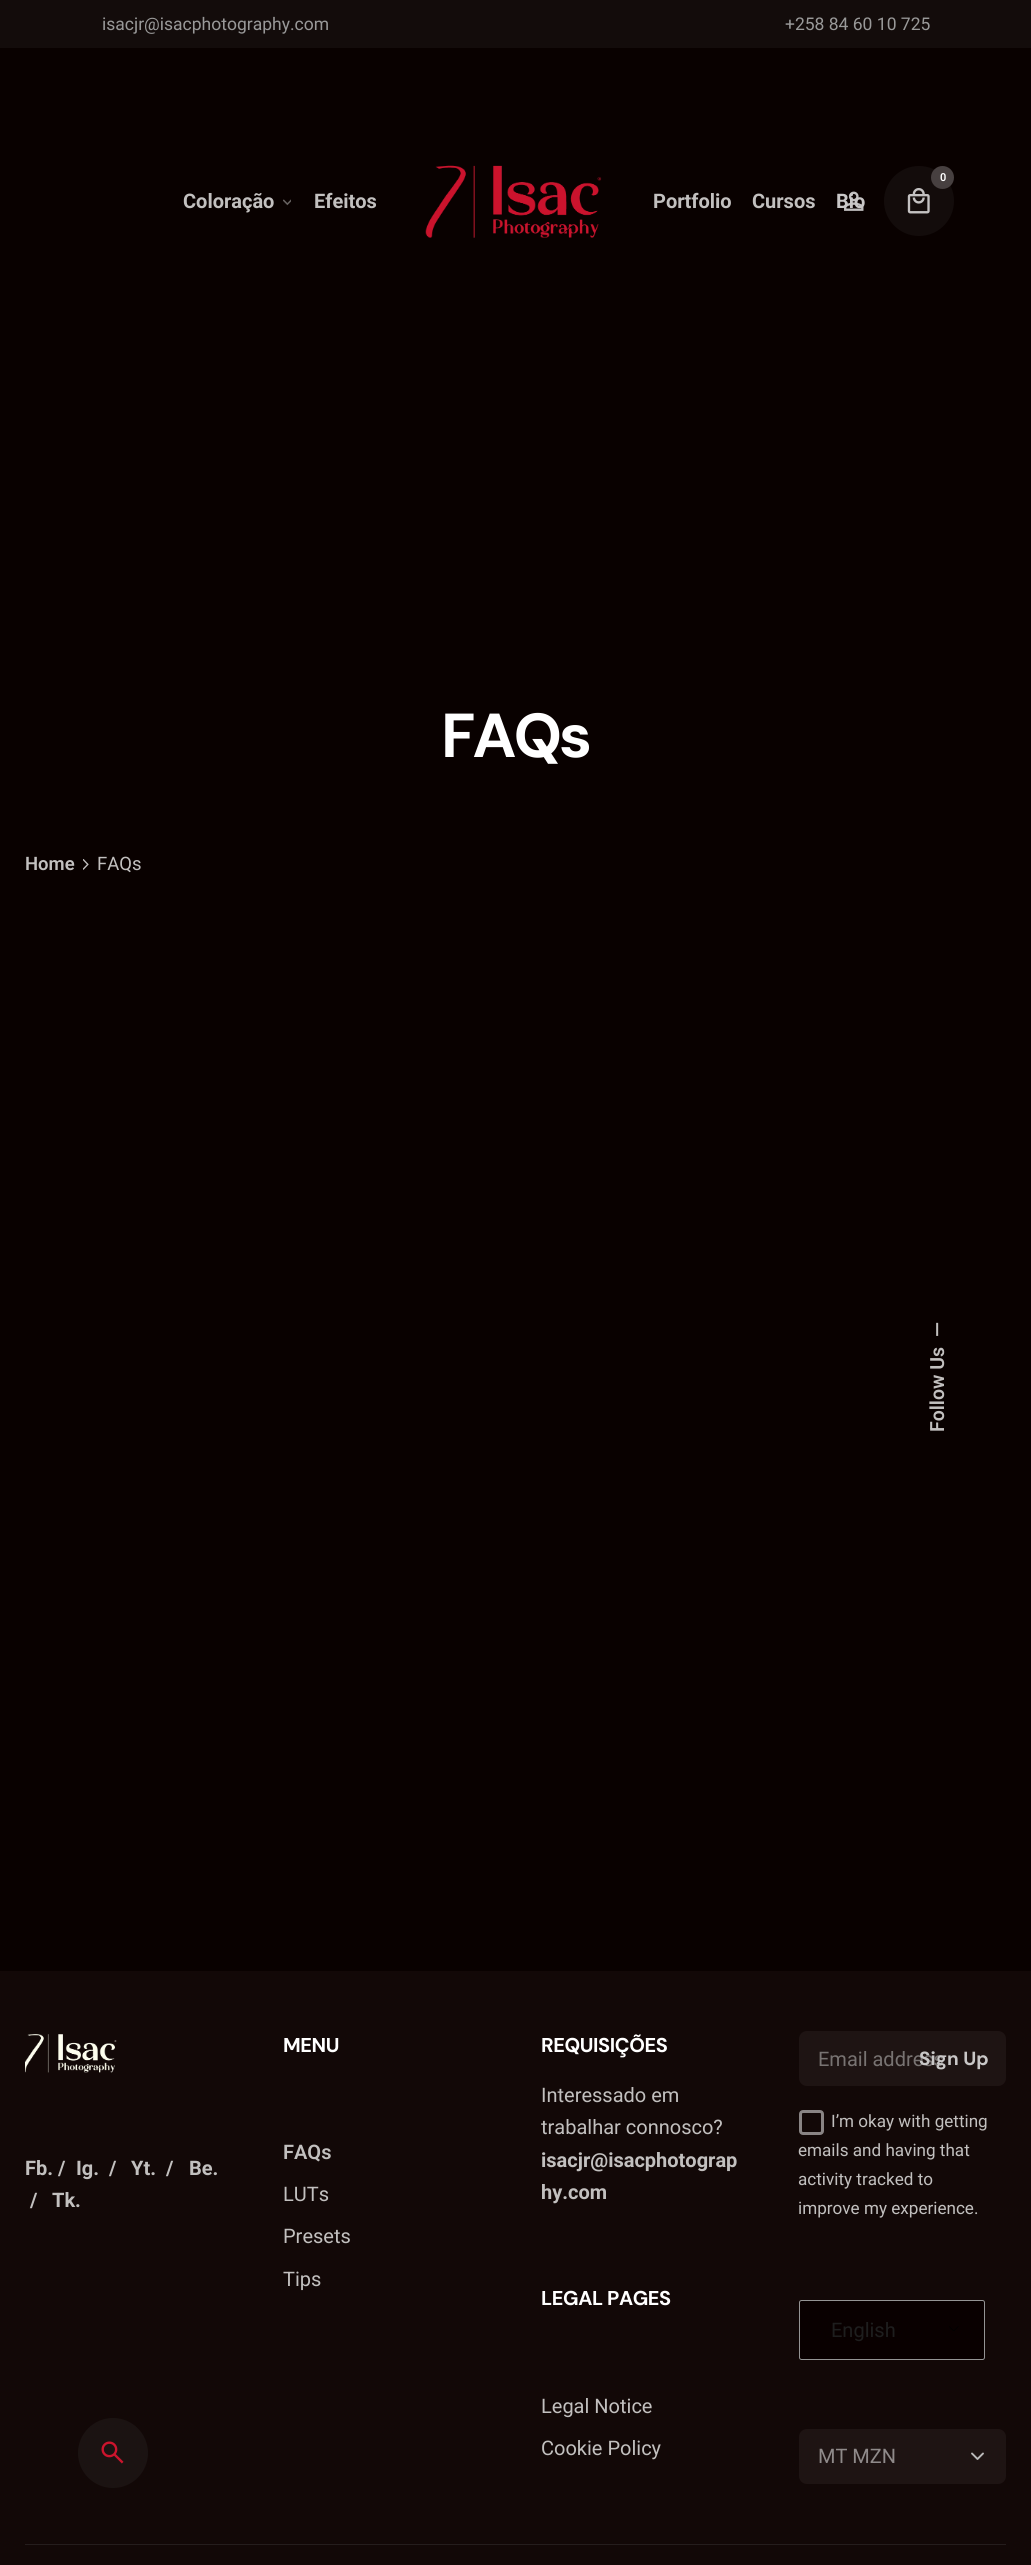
import math
import cairo


def write_spaced(ctx, x, y, s, letter, word):
	ctx.move_to(x, y)
	for ch in s:
		ctx.show_text(ch)
		ctx.rel_move_to(letter + word * (ch == ' '), 0)

def round_path(ctx, x, y, w, h, r):
	ctx.new_sub_path()
	for i, (u, v) in enumerate([(x + w - r, y + h - r), (x + r, y + h - r), (x + r, y + r), (x + w - r, y + r)]):
		ctx.arc(u, v, r, i * math.pi / 2, (i + 1) * math.pi / 2)
	ctx.close_path()

def paste(ctx, path, x, y, w, h):
	ctx.save()
	ctx.set_source_surface(cairo.ImageSurface.create_from_png(path), x, y)
	ctx.rectangle(x, y, w, h)
	ctx.fill()
	ctx.restore()

def draw(ctx):
	ctx.set_source_rgb(0.039, 0.004, 0)
	ctx.paint()
	ctx.set_source_rgb(0.078, 0.047, 0.043)
	ctx.rectangle(0, 0, 1031, 48)
	ctx.fill()
	ctx.select_font_face('Roboto')
	ctx.set_font_size(17.5)
	ctx.set_source_rgb(0.6, 0.6, 0.6)
	ctx.move_to(102, 30)
	ctx.show_text('isacjr@isacphotography.com')
	ctx.move_to(785, 30)
	ctx.show_text('+258 84 60 10 725')
	paste(ctx, 'media/1.png', 425, 165, 177, 73)
	ctx.set_source_rgb(0.078, 0.047, 0.043)
	ctx.arc(919, 201, 35, 0, 2 * math.pi)
	ctx.fill()
	paste(ctx, 'media/2.png', 907, 188, 23, 26)
	ctx.set_source_rgb(0.278, 0.251, 0.251)
	ctx.arc(942.5, 177.5, 11.5, 0, 2 * math.pi)
	ctx.fill()
	ctx.select_font_face('Roboto SemiBold')
	ctx.set_font_size(11)
	ctx.set_source_rgb(1, 1, 1)
	ctx.move_to(940, 181)
	ctx.show_text('0')
	paste(ctx, 'media/3.png', 844, 191, 20, 20)
	ctx.select_font_face('Roboto', cairo.FONT_SLANT_NORMAL, cairo.FONT_WEIGHT_BOLD)
	ctx.set_font_size(20)
	ctx.set_source_rgb(0.761, 0.753, 0.749)
	ctx.move_to(183, 208)
	ctx.show_text('Coloração')
	paste(ctx, 'media/4.png', 283, 199, 8, 7)
	for x, y, s in [
		(314, 208, 'Efeitos'),
		(653, 208, 'Portfolio'),
		(752, 208, 'Cursos'),
	]:
		ctx.move_to(x, y)
		ctx.show_text(s)
	ctx.set_source_rgb(0.788, 0.78, 0.78)
	ctx.move_to(836, 208)
	ctx.show_text('Bio')
	ctx.select_font_face('DM Sans', cairo.FONT_SLANT_NORMAL, cairo.FONT_WEIGHT_BOLD)
	ctx.set_font_size(62)
	ctx.set_source_rgb(1, 1, 1)
	write_spaced(ctx, 441, 757, 'FAQs', -3, 0)
	ctx.select_font_face('Roboto SemiBold')
	ctx.set_font_size(18.5)
	ctx.set_source_rgb(0.761, 0.753, 0.749)
	ctx.move_to(25, 870)
	ctx.show_text('Home')
	paste(ctx, 'media/5.png', 83, 859, 6, 11)
	ctx.select_font_face('Roboto')
	ctx.move_to(97, 870)
	ctx.show_text('FAQs')
	ctx.select_font_face('Roboto SemiBold')
	ctx.set_font_size(19.5)
	ctx.save()
	ctx.translate(944, 1337)
	ctx.rotate(-90 * math.pi / 180)
	ctx.move_to(0, 0)
	ctx.show_text('—')
	ctx.restore()
	ctx.save()
	ctx.translate(944, 1432)
	ctx.rotate(-90 * math.pi / 180)
	ctx.move_to(0, 0)
	ctx.show_text('Follow Us')
	ctx.restore()
	ctx.set_source_rgb(0.071, 0.035, 0.031)
	ctx.rectangle(0, 1971, 1031, 594)
	ctx.fill()
	paste(ctx, 'media/6.png', 25, 2034, 92, 39)
	ctx.select_font_face('Roboto', cairo.FONT_SLANT_NORMAL, cairo.FONT_WEIGHT_BOLD)
	ctx.set_font_size(20)
	ctx.set_source_rgb(0.761, 0.753, 0.749)
	for x, y, s in [
		(25, 2175, 'Fb. /'),
		(76, 2175, 'Ig.'),
		(109, 2175, '/'),
		(131, 2175, 'Yt.'),
		(166, 2175, '/'),
		(189, 2175, 'Be.'),
		(30, 2207, '/'),
		(52, 2207, 'Tk.'),
	]:
		ctx.move_to(x, y)
		ctx.show_text(s)
	ctx.select_font_face('DM Sans', cairo.FONT_SLANT_NORMAL, cairo.FONT_WEIGHT_BOLD)
	ctx.set_source_rgb(1, 1, 1)
	write_spaced(ctx, 283, 2052, 'MENU', -0.4, 0)
	ctx.select_font_face('Roboto SemiBold')
	ctx.set_source_rgb(0.761, 0.753, 0.749)
	ctx.move_to(283, 2159)
	ctx.show_text('FAQs')
	ctx.select_font_face('Roboto')
	for x, y, s in [
		(283, 2201, 'LUTs'),
		(283, 2243, 'Presets'),
		(283, 2286, 'Tips'),
	]:
		ctx.move_to(x, y)
		ctx.show_text(s)
	ctx.select_font_face('DM Sans', cairo.FONT_SLANT_NORMAL, cairo.FONT_WEIGHT_BOLD)
	ctx.set_source_rgb(1, 1, 1)
	write_spaced(ctx, 541, 2052, 'REQUISIÇÕES', -0.4, 0)
	ctx.select_font_face('Roboto')
	ctx.set_source_rgb(0.761, 0.753, 0.749)
	ctx.move_to(541, 2102)
	ctx.show_text('Interessado em')
	ctx.move_to(541, 2134)
	ctx.show_text('trabalhar connosco?')
	ctx.select_font_face('Roboto', cairo.FONT_SLANT_NORMAL, cairo.FONT_WEIGHT_BOLD)
	ctx.move_to(541, 2167)
	ctx.show_text('isacjr@isacphotograp')
	ctx.move_to(541, 2199)
	ctx.show_text('hy.com')
	ctx.select_font_face('DM Sans', cairo.FONT_SLANT_NORMAL, cairo.FONT_WEIGHT_BOLD)
	ctx.set_source_rgb(1, 1, 1)
	write_spaced(ctx, 541, 2305, 'LEGAL PAGES', -0.4, 0)
	ctx.select_font_face('Roboto')
	ctx.set_source_rgb(0.761, 0.753, 0.749)
	ctx.move_to(541, 2413)
	ctx.show_text('Legal Notice')
	ctx.move_to(541, 2455)
	ctx.show_text('Cookie Policy')
	ctx.set_source_rgb(0.118, 0.082, 0.078)
	round_path(ctx, 799, 2031, 207, 55, 8)
	ctx.fill()
	ctx.set_source_rgb(0.471, 0.451, 0.447)
	ctx.move_to(818, 2066)
	ctx.show_text('Email address')
	ctx.select_font_face('DM Sans', cairo.FONT_SLANT_NORMAL, cairo.FONT_WEIGHT_BOLD)
	ctx.set_font_size(19)
	ctx.set_source_rgb(0.788, 0.78, 0.78)
	ctx.move_to(919, 2065)
	ctx.show_text('Sign Up')
	round_path(ctx, 800.5, 2111.5, 22, 22, 2.5)
	ctx.set_source_rgb(0.537, 0.518, 0.518)
	ctx.set_line_width(3)
	ctx.stroke()
	ctx.select_font_face('Roboto')
	ctx.set_font_size(17.1)
	ctx.set_source_rgb(0.761, 0.753, 0.749)
	for x, y, s in [
		(831, 2127, 'I’m okay with getting'),
		(798, 2156, 'emails and having that'),
		(798, 2185, 'activity tracked to'),
		(798, 2214, 'improve my experience.'),
	]:
		ctx.move_to(x, y)
		ctx.show_text(s)
	ctx.set_source_rgb(0.039, 0, 0)
	round_path(ctx, 799, 2300, 186, 60, 2.5)
	ctx.fill()
	paste(ctx, 'media/7.png', 949, 2326, 10, 5)
	round_path(ctx, 799.5, 2300.5, 185, 59, 2)
	ctx.set_source_rgb(0.58, 0.58, 0.58)
	ctx.set_line_width(1)
	ctx.stroke()
	ctx.set_font_size(20)
	ctx.set_source_rgb(0.118, 0.118, 0.118)
	ctx.move_to(831, 2337)
	ctx.show_text('English')
	ctx.set_source_rgb(0.118, 0.082, 0.078)
	round_path(ctx, 799, 2429, 207, 55, 8)
	ctx.fill()
	ctx.new_path()
	ctx.move_to(972, 2453.5)
	ctx.line_to(977.5, 2459)
	ctx.line_to(983, 2453.5)
	ctx.set_source_rgb(0.733, 0.733, 0.733)
	ctx.set_line_width(1.9)
	ctx.set_line_cap(cairo.LINE_CAP_ROUND)
	ctx.set_line_join(cairo.LINE_JOIN_ROUND)
	ctx.stroke()
	ctx.set_source_rgb(0.561, 0.541, 0.541)
	ctx.move_to(818, 2463)
	ctx.show_text('MT MZN')
	ctx.set_source_rgb(0.145, 0.114, 0.114)
	ctx.rectangle(25, 2544, 981, 1)
	ctx.fill()
	ctx.set_source_rgb(0.106, 0.075, 0.071)
	ctx.arc(113, 2453, 35, 0, 2 * math.pi)
	ctx.fill()
	paste(ctx, 'media/8.png', 101, 2441, 23, 23)


surface = cairo.ImageSurface(cairo.FORMAT_RGB24, 1031, 2565)
ctx = cairo.Context(surface)
options = cairo.FontOptions()
options.set_hint_metrics(cairo.HINT_METRICS_OFF)
options.set_hint_style(cairo.HINT_STYLE_NONE)
ctx.set_font_options(options)
ctx.set_miter_limit(4)
draw(ctx)
surface.write_to_png('image.png')
